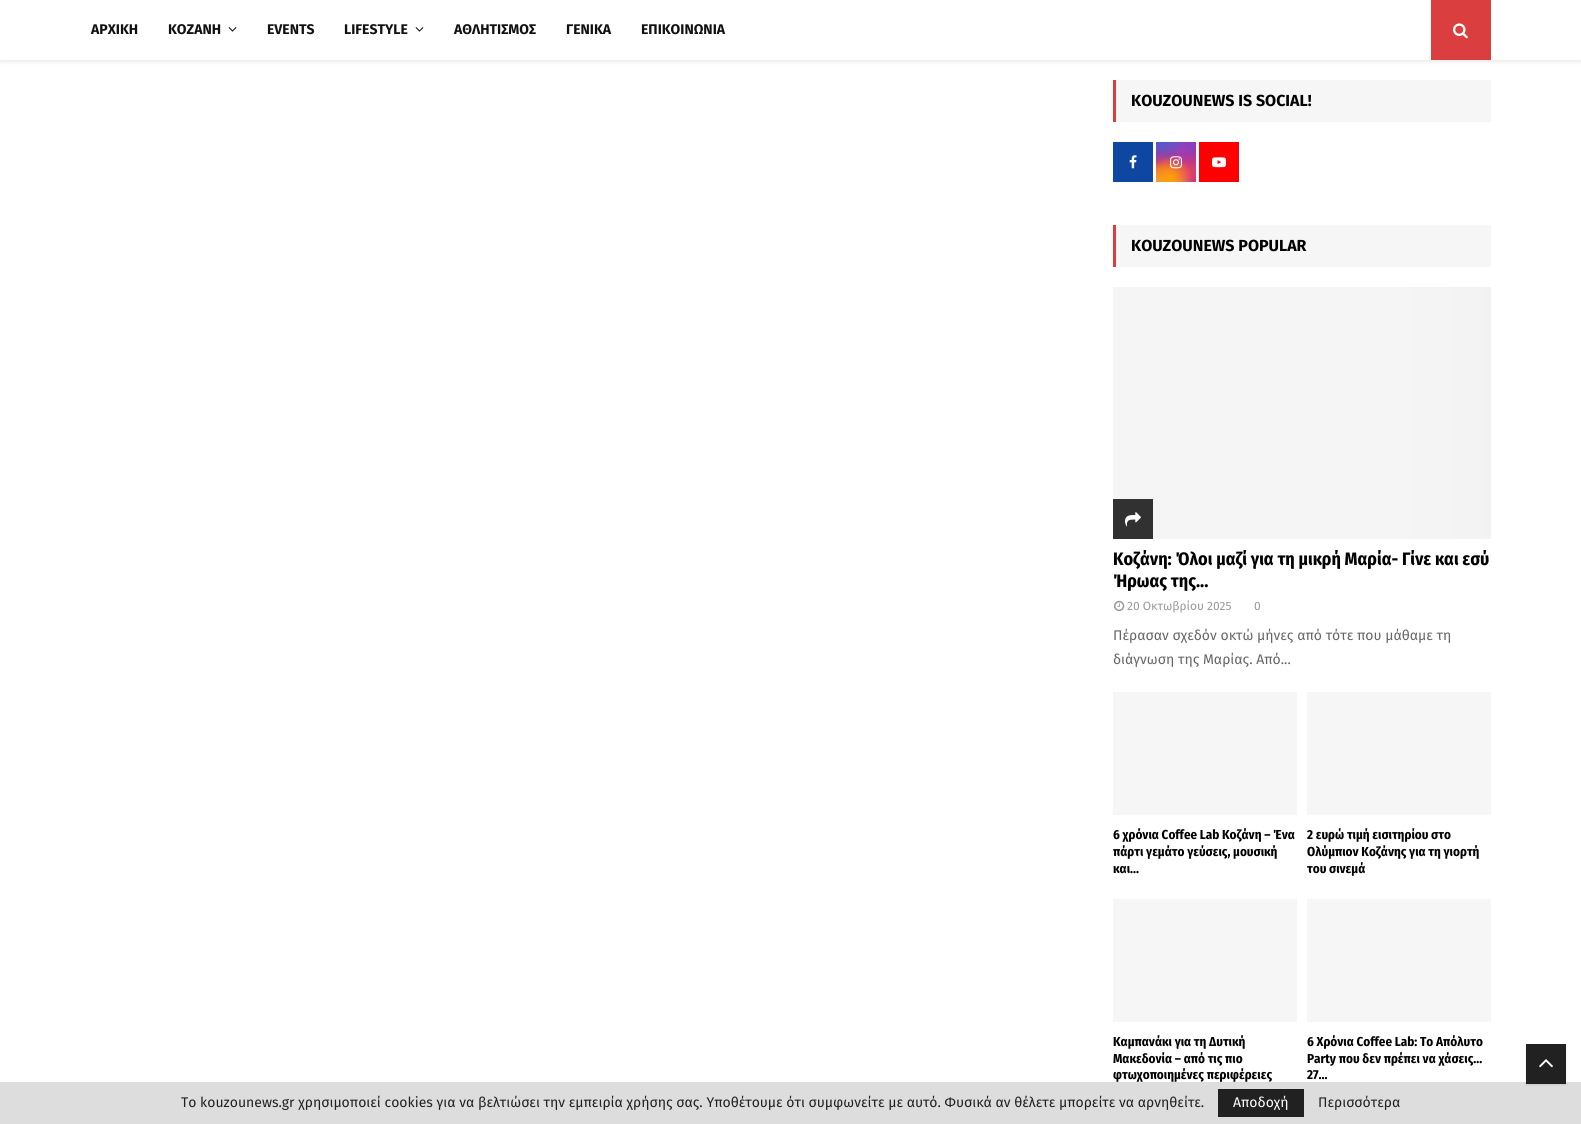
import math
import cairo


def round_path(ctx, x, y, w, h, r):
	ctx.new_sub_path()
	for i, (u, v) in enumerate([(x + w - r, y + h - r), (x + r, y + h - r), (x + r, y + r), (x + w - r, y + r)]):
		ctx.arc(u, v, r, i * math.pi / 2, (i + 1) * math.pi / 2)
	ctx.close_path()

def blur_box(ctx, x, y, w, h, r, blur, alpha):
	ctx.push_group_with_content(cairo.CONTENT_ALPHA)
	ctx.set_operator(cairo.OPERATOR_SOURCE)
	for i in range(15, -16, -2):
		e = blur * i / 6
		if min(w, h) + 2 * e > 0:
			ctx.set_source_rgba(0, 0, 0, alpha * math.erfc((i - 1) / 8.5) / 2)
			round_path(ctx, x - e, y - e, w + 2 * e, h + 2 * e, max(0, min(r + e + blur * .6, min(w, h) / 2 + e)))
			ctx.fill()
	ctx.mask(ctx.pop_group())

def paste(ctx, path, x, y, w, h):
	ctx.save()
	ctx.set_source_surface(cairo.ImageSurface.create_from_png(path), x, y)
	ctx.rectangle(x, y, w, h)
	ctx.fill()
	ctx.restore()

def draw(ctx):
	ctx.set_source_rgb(1, 1, 1)
	ctx.paint()
	ctx.set_source_rgb(0.745, 0.745, 0.745)
	blur_box(ctx, 0, 1, 1581, 60, 0, 2.5, 0.46)
	ctx.set_source_rgb(1, 1, 1)
	ctx.rectangle(0, 0, 1581, 60)
	ctx.fill()
	ctx.select_font_face('Fira Sans', cairo.FONT_SLANT_NORMAL, cairo.FONT_WEIGHT_BOLD)
	ctx.set_font_size(14)
	ctx.set_source_rgb(0.067, 0.067, 0.067)
	ctx.move_to(91, 34)
	ctx.show_text('ΑΡΧΙΚΗ')
	ctx.move_to(168, 34)
	ctx.show_text('ΚΟΖΑΝΗ')
	paste(ctx, 'media/1.png', 228, 27, 9, 5)
	ctx.move_to(267, 34)
	ctx.show_text('EVENTS')
	ctx.move_to(344, 34)
	ctx.show_text('LIFESTYLE')
	paste(ctx, 'media/1.png', 415, 27, 9, 5)
	for x, y, s in [
		(454, 34, 'ΑΘΛΗΤΙΣΜΟΣ'),
		(566, 34, 'ΓΕΝΙΚΑ'),
		(641, 34, 'ΕΠΙΚΟΙΝΩΝΙΑ'),
	]:
		ctx.move_to(x, y)
		ctx.show_text(s)
	ctx.set_source_rgb(0.859, 0.243, 0.243)
	ctx.rectangle(1431, 0, 60, 60)
	ctx.fill()
	paste(ctx, 'media/2.png', 1453, 23, 15, 16)
	ctx.set_source_rgb(0.961, 0.961, 0.961)
	ctx.rectangle(1116, 80, 375, 42)
	ctx.fill()
	ctx.set_source_rgb(0.859, 0.243, 0.243)
	ctx.rectangle(1113, 80, 3, 42)
	ctx.fill()
	ctx.set_font_size(16)
	ctx.set_source_rgb(0, 0, 0)
	ctx.move_to(1131, 106)
	ctx.show_text('KOUZOUNEWS IS SOCIAL!')
	ctx.set_source_rgb(0.051, 0.278, 0.631)
	ctx.rectangle(1113, 142, 40, 40)
	ctx.fill()
	paste(ctx, 'media/3.png', 1129, 155, 8, 14)
	gradient = cairo.LinearGradient(1176, 142, 1176, 182)
	gradient.add_color_stop_rgba(0, 0.396, 0.349, 0.792, 1)
	gradient.add_color_stop_rgba(0.3, 0.737, 0.192, 0.561, 1)
	gradient.add_color_stop_rgba(0.5, 0.89, 0.247, 0.373, 1)
	gradient.add_color_stop_rgba(0.7, 0.969, 0.463, 0.22, 1)
	gradient.add_color_stop_rgba(1, 0.996, 0.776, 0.427, 1)
	ctx.set_source(gradient)
	ctx.rectangle(1156, 142, 40, 40)
	ctx.fill()
	gradient = cairo.RadialGradient(1196, 182, 0, 1196, 182, 57)
	gradient.add_color_stop_rgba(0, 0.831, 0.192, 0.471, 1)
	gradient.add_color_stop_rgba(1, 0.831, 0.192, 0.471, 0)
	ctx.set_source(gradient)
	ctx.rectangle(1156, 142, 40, 40)
	ctx.fill()
	gradient = cairo.RadialGradient(0, 0, 0, 0, 0, 1)
	gradient.set_matrix(cairo.Matrix(1 / 34, 0, 0, 1 / 68, -1 * 1180 / 34, -1 * 134 / 68))
	gradient.add_color_stop_rgba(0, 0.561, 0.267, 0.78, 1)
	gradient.add_color_stop_rgba(0.5, 0.561, 0.267, 0.78, 0)
	ctx.set_source(gradient)
	ctx.rectangle(1165, 142, 30, 25)
	ctx.fill()
	gradient = cairo.RadialGradient(1196, 142, 0, 1196, 142, 57)
	gradient.add_color_stop_rgba(0, 0.537, 0.239, 0.761, 1)
	gradient.add_color_stop_rgba(0.5, 0.537, 0.239, 0.761, 0)
	ctx.set_source(gradient)
	ctx.rectangle(1171, 142, 25, 28)
	ctx.fill()
	gradient = cairo.RadialGradient(0, 0, 0, 0, 0, 1)
	gradient.set_matrix(cairo.Matrix(1 / 45, 0, 0, 1 / 85, -1 * 1164 / 45, -1 * 122 / 85))
	gradient.add_color_stop_rgba(0, 0.322, 0.345, 0.812, 1)
	gradient.add_color_stop_rgba(0.5, 0.322, 0.345, 0.812, 0)
	ctx.set_source(gradient)
	ctx.rectangle(1156, 142, 26, 22)
	ctx.fill()
	gradient = cairo.RadialGradient(0, 0, 0, 0, 0, 1)
	gradient.set_matrix(cairo.Matrix(1 / 57, 0, 0, 1 / 71, -1 * 1156 / 57, -1 * 132 / 71))
	gradient.add_color_stop_rgba(0, 0.322, 0.345, 0.812, 1)
	gradient.add_color_stop_rgba(0.5, 0.322, 0.345, 0.812, 0)
	ctx.set_source(gradient)
	ctx.rectangle(1156, 142, 26, 25)
	ctx.fill()
	gradient = cairo.RadialGradient(1156, 198, 0, 1156, 198, 69)
	gradient.add_color_stop_rgba(0, 0.937, 0.631, 0.11, 1)
	gradient.add_color_stop_rgba(0.5, 0.937, 0.631, 0.11, 0)
	ctx.set_source(gradient)
	ctx.rectangle(1156, 164, 29, 18)
	ctx.fill()
	gradient = cairo.RadialGradient(1170, 178, 0, 1170, 178, 44)
	gradient.add_color_stop_rgba(0, 1, 0.631, 0, 1)
	gradient.add_color_stop_rgba(0.5, 1, 0.631, 0, 0)
	ctx.set_source(gradient)
	ctx.rectangle(1156, 156, 36, 26)
	ctx.fill()
	paste(ctx, 'media/4.png', 1170, 156, 12, 13)
	ctx.set_source_rgb(1, 0, 0)
	ctx.rectangle(1199, 142, 40, 40)
	ctx.fill()
	paste(ctx, 'media/5.png', 1212, 157, 14, 11)
	ctx.set_source_rgb(0.961, 0.961, 0.961)
	ctx.rectangle(1116, 225, 375, 42)
	ctx.fill()
	ctx.set_source_rgb(0.859, 0.243, 0.243)
	ctx.rectangle(1113, 225, 3, 42)
	ctx.fill()
	ctx.set_source_rgb(0, 0, 0)
	ctx.move_to(1131, 251)
	ctx.show_text('KOUZOUNEWS POPULAR')
	gradient = cairo.LinearGradient(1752, 413, 852, 413)
	gradient.add_color_stop_rgba(0, 0.961, 0.961, 0.961, 1)
	gradient.add_color_stop_rgba(0.15, 0.937, 0.937, 0.937, 1)
	gradient.add_color_stop_rgba(0.4, 0.961, 0.961, 0.961, 1)
	gradient.add_color_stop_rgba(1, 0.961, 0.961, 0.961, 1)
	ctx.set_source(gradient)
	ctx.rectangle(1113, 287, 378, 252)
	ctx.fill()
	ctx.set_source_rgb(0.192, 0.192, 0.192)
	ctx.rectangle(1113, 499, 40, 40)
	ctx.fill()
	paste(ctx, 'media/6.png', 1125, 512, 16, 15)
	ctx.select_font_face('Fira Sans Condensed', cairo.FONT_SLANT_NORMAL, cairo.FONT_WEIGHT_BOLD)
	ctx.set_font_size(18)
	ctx.set_source_rgb(0, 0, 0)
	ctx.move_to(1113, 565)
	ctx.show_text('Κοζάνη: Όλοι μαζί για τη μικρή Μαρία- Γίνε και εσύ')
	ctx.move_to(1113, 587)
	ctx.show_text('Ήρωας της...')
	paste(ctx, 'media/7.png', 1114, 600, 11, 12)
	ctx.select_font_face('Fira Sans')
	ctx.set_font_size(12)
	ctx.set_source_rgb(0.6, 0.6, 0.6)
	ctx.move_to(1127, 610)
	ctx.show_text('20 Οκτωβρίου 2025')
	ctx.move_to(1254, 610)
	ctx.show_text('0')
	ctx.set_font_size(14)
	ctx.set_source_rgb(0.4, 0.4, 0.4)
	ctx.move_to(1113, 640)
	ctx.show_text('Πέρασαν σχεδόν οκτώ μήνες από τότε που μάθαμε τη')
	ctx.move_to(1113, 664)
	ctx.show_text('διάγνωση της Μαρίας. Από...')
	ctx.set_source_rgb(0.961, 0.961, 0.961)
	ctx.rectangle(1113, 692, 184, 123)
	ctx.fill()
	ctx.select_font_face('Fira Sans Condensed', cairo.FONT_SLANT_NORMAL, cairo.FONT_WEIGHT_BOLD)
	ctx.set_font_size(13)
	ctx.set_source_rgb(0, 0, 0)
	for x, y, s in [
		(1113, 839, '6 χρόνια Coffee Lab Κοζάνη – Ένα'),
		(1113, 856, 'πάρτι γεμάτο γεύσεις, μουσική'),
		(1113, 873, 'και...'),
	]:
		ctx.move_to(x, y)
		ctx.show_text(s)
	ctx.set_source_rgb(0.961, 0.961, 0.961)
	ctx.rectangle(1307, 692, 184, 123)
	ctx.fill()
	ctx.set_source_rgb(0, 0, 0)
	for x, y, s in [
		(1307, 839, '2 ευρώ τιμή εισιτηρίου στο'),
		(1307, 856, 'Ολύμπιον Κοζάνης για τη γιορτή'),
		(1307, 873, 'του σινεμά'),
	]:
		ctx.move_to(x, y)
		ctx.show_text(s)
	ctx.set_source_rgb(0.961, 0.961, 0.961)
	ctx.rectangle(1113, 899, 184, 123)
	ctx.fill()
	ctx.set_source_rgb(0, 0, 0)
	for x, y, s in [
		(1113, 1046, 'Καμπανάκι για τη Δυτική'),
		(1113, 1063, 'Μακεδονία – από τις πιο'),
		(1113, 1079, 'φτωχοποιημένες περιφέρειες'),
	]:
		ctx.move_to(x, y)
		ctx.show_text(s)
	ctx.set_source_rgb(0.961, 0.961, 0.961)
	ctx.rectangle(1307, 899, 184, 123)
	ctx.fill()
	ctx.set_source_rgb(0, 0, 0)
	for x, y, s in [
		(1307, 1046, '6 Χρόνια Coffee Lab: Το Απόλυτο'),
		(1307, 1063, 'Party που δεν πρέπει να χάσεις…'),
		(1307, 1079, '27...'),
	]:
		ctx.move_to(x, y)
		ctx.show_text(s)
	ctx.set_source_rgb(0.867, 0.867, 0.867)
	ctx.rectangle(0, 1082, 1581, 42)
	ctx.fill()
	ctx.set_source_rgb(0, 0, 0)
	blur_box(ctx, 1526, 1045, 40, 40, 0, 1, 0.1)
	ctx.set_source_rgb(0.129, 0.129, 0.129)
	ctx.rectangle(1526, 1044, 40, 40)
	ctx.fill()
	paste(ctx, 'media/8.png', 1539, 1059, 14, 9)
	ctx.select_font_face('Fira Sans')
	ctx.set_font_size(14)
	ctx.move_to(181, 1107)
	ctx.show_text('Το kouzounews.gr χρησιμοποιεί cookies για να βελτιώσει την εμπειρία χρήσης σας. Υποθέτουμε ότι συμφωνείτε με αυτό. Φυσικά αν θέλετε μπορείτε να αρνηθείτε.')
	ctx.rectangle(1218, 1089, 86, 28)
	ctx.fill()
	ctx.set_source_rgb(1, 1, 1)
	ctx.move_to(1233, 1107)
	ctx.show_text('Αποδοχή')
	ctx.set_source_rgb(0.129, 0.129, 0.129)
	ctx.move_to(1318, 1107)
	ctx.show_text('Περισσότερα')


surface = cairo.ImageSurface(cairo.FORMAT_RGB24, 1581, 1124)
ctx = cairo.Context(surface)
options = cairo.FontOptions()
options.set_hint_metrics(cairo.HINT_METRICS_OFF)
options.set_hint_style(cairo.HINT_STYLE_NONE)
ctx.set_font_options(options)
ctx.set_miter_limit(4)
draw(ctx)
surface.write_to_png('image.png')
